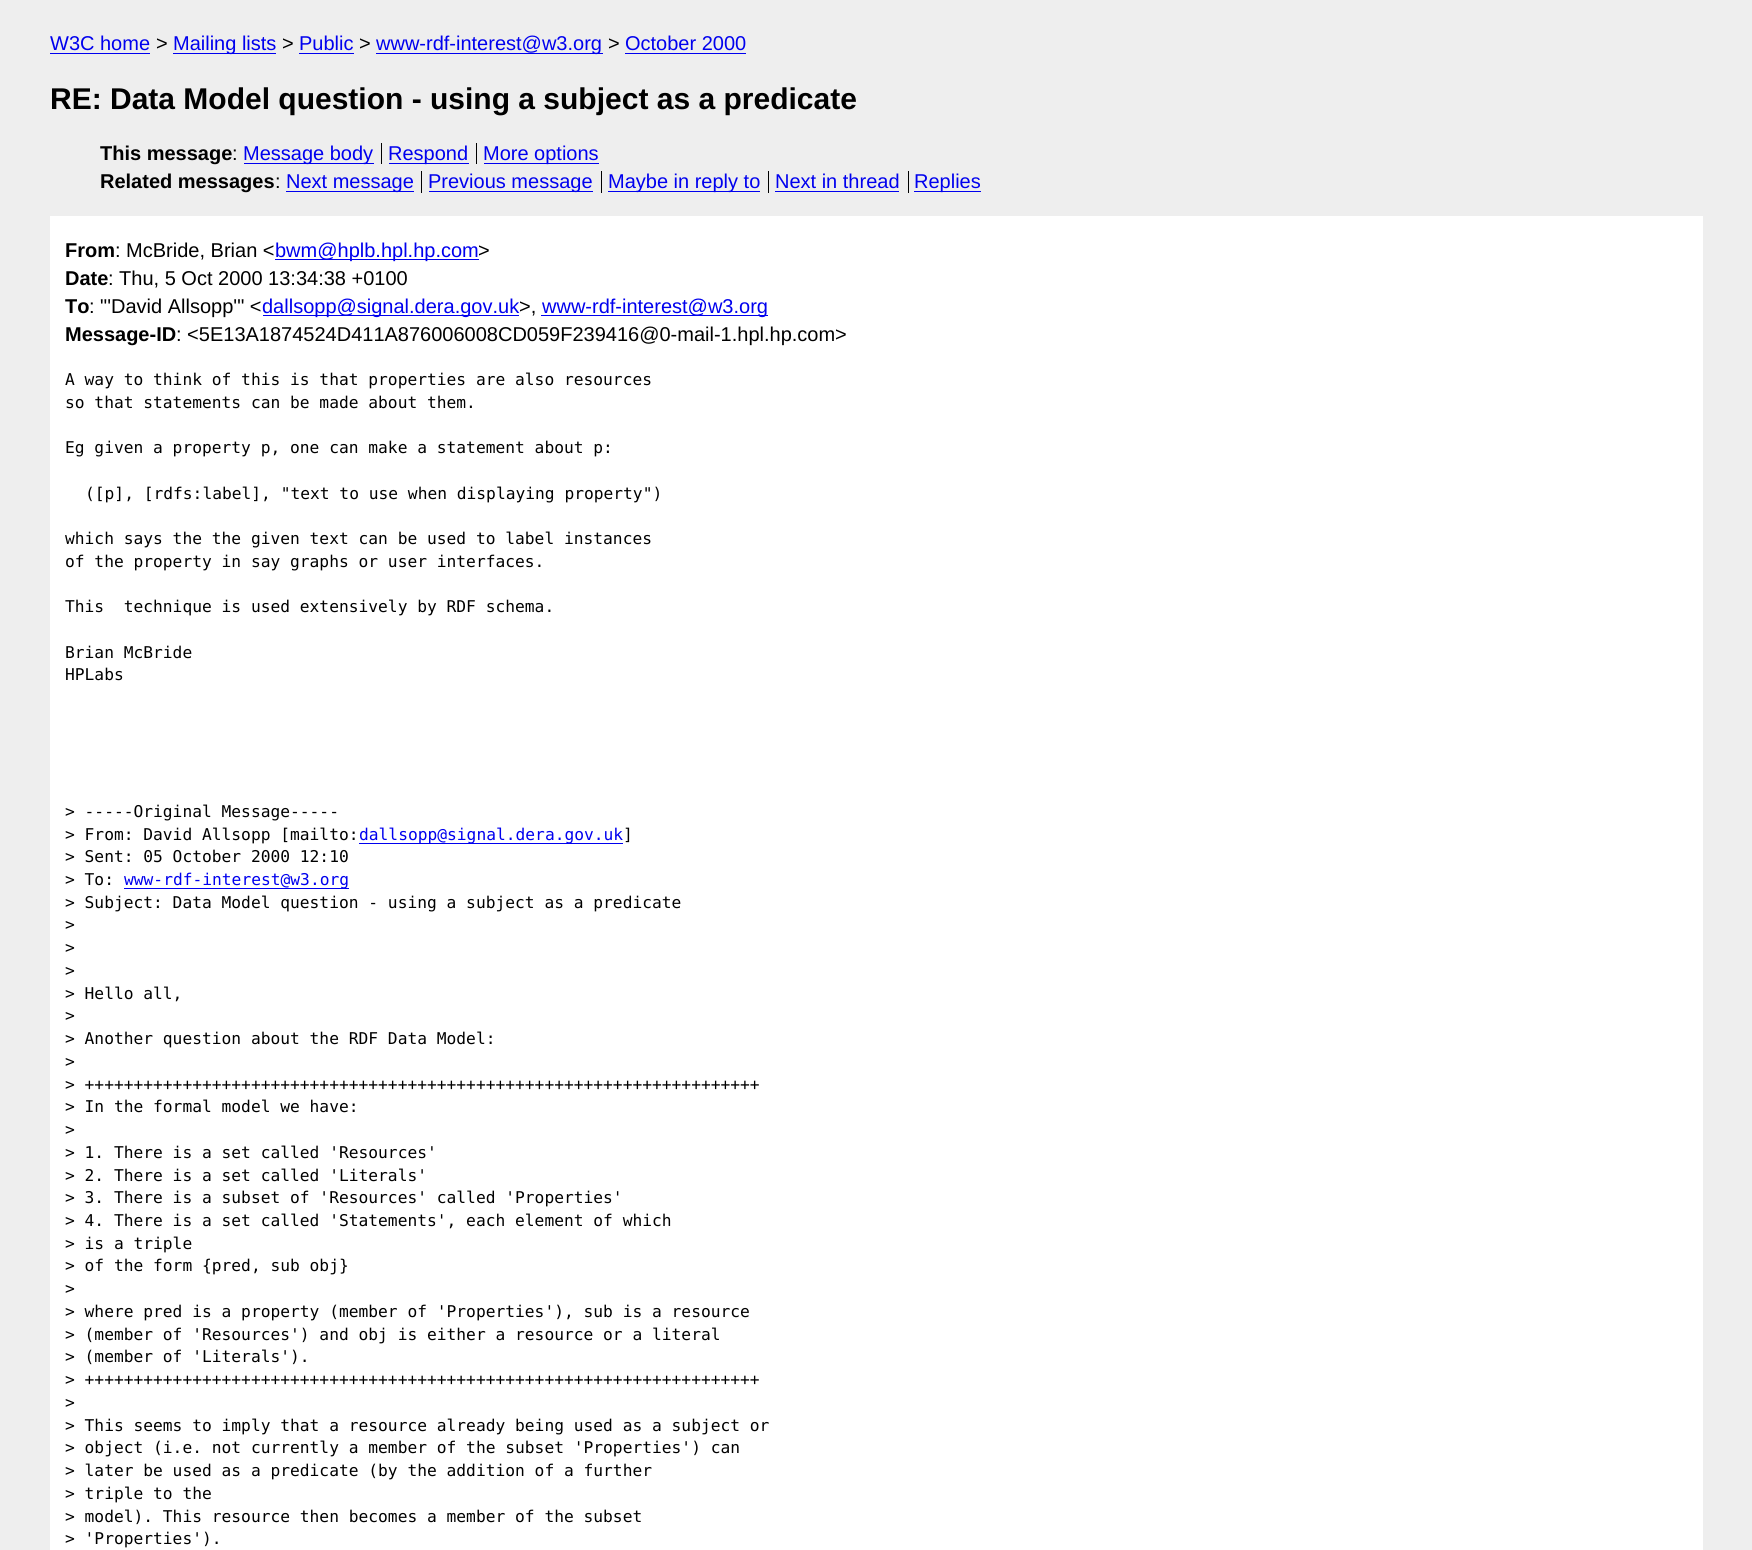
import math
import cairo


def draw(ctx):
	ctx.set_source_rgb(0.933, 0.933, 0.933)
	ctx.paint()
	ctx.select_font_face('Liberation Sans')
	ctx.set_font_size(20)
	ctx.set_source_rgb(0, 0, 0.933)
	ctx.move_to(50, 50)
	ctx.show_text('W3C home')
	ctx.rectangle(50, 53, 100, 1)
	ctx.fill()
	ctx.set_source_rgb(0, 0, 0)
	ctx.move_to(156, 50)
	ctx.show_text('>')
	ctx.set_source_rgb(0, 0, 0.933)
	ctx.rectangle(173, 53, 103, 1)
	ctx.fill()
	ctx.move_to(173, 50)
	ctx.show_text('Mailing lists')
	ctx.set_source_rgb(0, 0, 0)
	ctx.move_to(282, 50)
	ctx.show_text('>')
	ctx.set_source_rgb(0, 0, 0.933)
	ctx.move_to(299, 50)
	ctx.show_text('Public')
	ctx.rectangle(299, 53, 55, 1)
	ctx.fill()
	ctx.set_source_rgb(0, 0, 0)
	ctx.move_to(359, 50)
	ctx.show_text('>')
	ctx.set_source_rgb(0, 0, 0.933)
	ctx.rectangle(376, 53, 227, 1)
	ctx.fill()
	ctx.move_to(376, 50)
	ctx.show_text('www-rdf-interest@w3.org')
	ctx.set_source_rgb(0, 0, 0)
	ctx.move_to(608, 50)
	ctx.show_text('>')
	ctx.set_source_rgb(0, 0, 0.933)
	ctx.move_to(625, 50)
	ctx.show_text('October 2000')
	ctx.rectangle(625, 53, 121, 1)
	ctx.fill()
	ctx.select_font_face('Liberation Sans', cairo.FONT_SLANT_NORMAL, cairo.FONT_WEIGHT_BOLD)
	ctx.set_font_size(30)
	ctx.set_source_rgb(0, 0, 0)
	ctx.move_to(50, 109)
	ctx.show_text('RE: Data Model question - using a subject as a predicate')
	ctx.set_font_size(20)
	ctx.move_to(100, 160)
	ctx.show_text('This message')
	ctx.select_font_face('Liberation Sans')
	ctx.move_to(232, 160)
	ctx.show_text(':')
	ctx.set_source_rgb(0, 0, 0.933)
	ctx.rectangle(244, 163, 130, 1)
	ctx.fill()
	ctx.move_to(243, 160)
	ctx.show_text('Message body')
	ctx.set_source_rgb(0, 0, 0)
	ctx.rectangle(381, 143, 1, 21)
	ctx.fill()
	ctx.set_source_rgb(0, 0, 0.933)
	ctx.rectangle(389, 163, 80, 1)
	ctx.fill()
	ctx.move_to(388, 160)
	ctx.show_text('Respond')
	ctx.rectangle(484, 163, 115, 1)
	ctx.fill()
	ctx.move_to(483, 160)
	ctx.show_text('More options')
	ctx.set_source_rgb(0, 0, 0)
	ctx.rectangle(476, 143, 1, 21)
	ctx.fill()
	ctx.select_font_face('Liberation Sans', cairo.FONT_SLANT_NORMAL, cairo.FONT_WEIGHT_BOLD)
	ctx.move_to(100, 188)
	ctx.show_text('Related messages')
	ctx.select_font_face('Liberation Sans')
	ctx.move_to(275, 188)
	ctx.show_text(':')
	ctx.set_source_rgb(0, 0, 0.933)
	ctx.rectangle(286, 191, 128, 1)
	ctx.fill()
	ctx.move_to(286, 188)
	ctx.show_text('Next message')
	ctx.rectangle(429, 191, 164, 1)
	ctx.fill()
	ctx.move_to(428, 188)
	ctx.show_text('Previous message')
	ctx.set_source_rgb(0, 0, 0)
	ctx.rectangle(421, 171, 1, 22)
	ctx.fill()
	ctx.set_source_rgb(0, 0, 0.933)
	ctx.rectangle(608, 191, 152, 1)
	ctx.fill()
	ctx.move_to(608, 188)
	ctx.show_text('Maybe in reply to')
	ctx.set_source_rgb(0, 0, 0)
	ctx.rectangle(601, 171, 1, 22)
	ctx.fill()
	ctx.set_source_rgb(0, 0, 0.933)
	ctx.move_to(775, 188)
	ctx.show_text('Next in thread')
	ctx.set_source_rgb(0, 0, 0)
	ctx.rectangle(768, 171, 1, 22)
	ctx.fill()
	ctx.set_source_rgb(0, 0, 0.933)
	ctx.rectangle(775, 191, 124, 1)
	ctx.rectangle(914, 191, 67, 1)
	ctx.fill()
	ctx.move_to(914, 188)
	ctx.show_text('Replies')
	ctx.set_source_rgb(0, 0, 0)
	ctx.rectangle(908, 171, 1, 22)
	ctx.fill()
	ctx.set_source_rgb(1, 1, 1)
	ctx.rectangle(50, 216, 1653, 1334)
	ctx.fill()
	ctx.select_font_face('Liberation Sans', cairo.FONT_SLANT_NORMAL, cairo.FONT_WEIGHT_BOLD)
	ctx.set_source_rgb(0, 0, 0)
	ctx.move_to(65, 257)
	ctx.show_text('From')
	ctx.select_font_face('Liberation Sans')
	ctx.move_to(115, 257)
	ctx.show_text(': McBride, Brian <')
	ctx.set_source_rgb(0, 0, 0.933)
	ctx.rectangle(275, 259, 204, 1)
	ctx.fill()
	ctx.move_to(275, 257)
	ctx.show_text('bwm@hplb.hpl.hp.com')
	ctx.set_source_rgb(0, 0, 0)
	ctx.move_to(478, 257)
	ctx.show_text('>')
	ctx.select_font_face('Liberation Sans', cairo.FONT_SLANT_NORMAL, cairo.FONT_WEIGHT_BOLD)
	ctx.move_to(65, 285)
	ctx.show_text('Date')
	ctx.select_font_face('Liberation Sans')
	ctx.move_to(108, 285)
	ctx.show_text(': Thu, 5 Oct 2000 13:34:38 +0100')
	ctx.select_font_face('Liberation Sans', cairo.FONT_SLANT_NORMAL, cairo.FONT_WEIGHT_BOLD)
	ctx.move_to(65, 313)
	ctx.show_text('To')
	ctx.select_font_face('Liberation Sans')
	ctx.move_to(89, 313)
	ctx.show_text(': "\'David Allsopp\'" <')
	ctx.set_source_rgb(0, 0, 0.933)
	ctx.rectangle(263, 315, 256, 1)
	ctx.fill()
	ctx.move_to(262, 313)
	ctx.show_text('dallsopp@signal.dera.gov.uk')
	ctx.set_source_rgb(0, 0, 0)
	ctx.move_to(519, 313)
	ctx.show_text('>,')
	ctx.set_source_rgb(0, 0, 0.933)
	ctx.rectangle(541, 315, 227, 1)
	ctx.fill()
	ctx.move_to(542, 313)
	ctx.show_text('www-rdf-interest@w3.org')
	ctx.select_font_face('Liberation Sans', cairo.FONT_SLANT_NORMAL, cairo.FONT_WEIGHT_BOLD)
	ctx.set_source_rgb(0, 0, 0)
	ctx.move_to(65, 341)
	ctx.show_text('Message-ID')
	ctx.select_font_face('Liberation Sans')
	ctx.move_to(176, 341)
	ctx.show_text(': <5E13A1874524D411A876006008CD059F239416@0-mail-1.hpl.hp.com>')
	ctx.select_font_face('DejaVu Sans Mono')
	ctx.set_font_size(16.25)
	for x, y, s in [
		(65, 385, 'A way to think of this is that properties are also resources'),
		(65, 408, 'so that statements can be made about them.'),
		(65, 453, 'Eg given a property p, one can make a statement about p:'),
		(85, 499, '([p], [rdfs:label], "text to use when displaying property")'),
		(65, 544, 'which says the the given text can be used to label instances'),
		(65, 567, 'of the property in say graphs or user interfaces.'),
		(65, 612, 'This  technique is used extensively by RDF schema.'),
		(65, 658, 'Brian McBride'),
		(65, 680, 'HPLabs'),
		(65, 817, '> -----Original Message-----'),
		(65, 840, '> From: David Allsopp [mailto:'),
	]:
		ctx.move_to(x, y)
		ctx.show_text(s)
	ctx.set_source_rgb(0, 0, 0.933)
	ctx.rectangle(359, 843, 264, 1)
	ctx.fill()
	ctx.move_to(359, 840)
	ctx.show_text('dallsopp@signal.dera.gov.uk')
	ctx.set_source_rgb(0, 0, 0)
	for x, y, s in [
		(623, 840, ']'),
		(65, 862, '> Sent: 05 October 2000 12:10'),
		(65, 885, '> To:'),
	]:
		ctx.move_to(x, y)
		ctx.show_text(s)
	ctx.set_source_rgb(0, 0, 0.933)
	ctx.rectangle(124, 888, 225, 1)
	ctx.fill()
	ctx.move_to(124, 885)
	ctx.show_text('www-rdf-interest@w3.org')
	ctx.set_source_rgb(0, 0, 0)
	for x, y, s in [
		(65, 908, '> Subject: Data Model question - using a subject as a predicate'),
		(65, 930, '>'),
		(65, 953, '>'),
		(65, 976, '>'),
		(65, 999, '> Hello all,'),
		(65, 1021, '>'),
		(65, 1044, '> Another question about the RDF Data Model:'),
		(65, 1067, '>'),
		(65, 1090, '> +++++++++++++++++++++++++++++++++++++++++++++++++++++++++++++++++++++'),
		(65, 1112, '> In the formal model we have:'),
		(65, 1135, '>'),
		(65, 1158, '> 1. There is a set called \'Resources\''),
		(65, 1181, '> 2. There is a set called \'Literals\''),
		(65, 1203, '> 3. There is a subset of \'Resources\' called \'Properties\''),
		(65, 1226, '> 4. There is a set called \'Statements\', each element of which'),
		(65, 1249, '> is a triple'),
		(65, 1271, '> of the form {pred, sub obj}'),
		(65, 1294, '>'),
		(65, 1317, '> where pred is a property (member of \'Properties\'), sub is a resource'),
		(65, 1340, '> (member of \'Resources\') and obj is either a resource or a literal'),
		(65, 1362, '> (member of \'Literals\').'),
		(65, 1385, '> +++++++++++++++++++++++++++++++++++++++++++++++++++++++++++++++++++++'),
		(65, 1408, '>'),
		(65, 1431, '> This seems to imply that a resource already being used as a subject or'),
		(65, 1453, '> object (i.e. not currently a member of the subset \'Properties\') can'),
		(65, 1476, '> later be used as a predicate (by the addition of a further'),
		(65, 1499, '> triple to the'),
		(65, 1522, '> model). This resource then becomes a member of the subset'),
		(65, 1544, '> \'Properties\').'),
	]:
		ctx.move_to(x, y)
		ctx.show_text(s)


surface = cairo.ImageSurface(cairo.FORMAT_RGB24, 1752, 1550)
ctx = cairo.Context(surface)
options = cairo.FontOptions()
options.set_hint_metrics(cairo.HINT_METRICS_OFF)
options.set_hint_style(cairo.HINT_STYLE_NONE)
ctx.set_font_options(options)
ctx.set_miter_limit(4)
draw(ctx)
surface.write_to_png('image.png')
